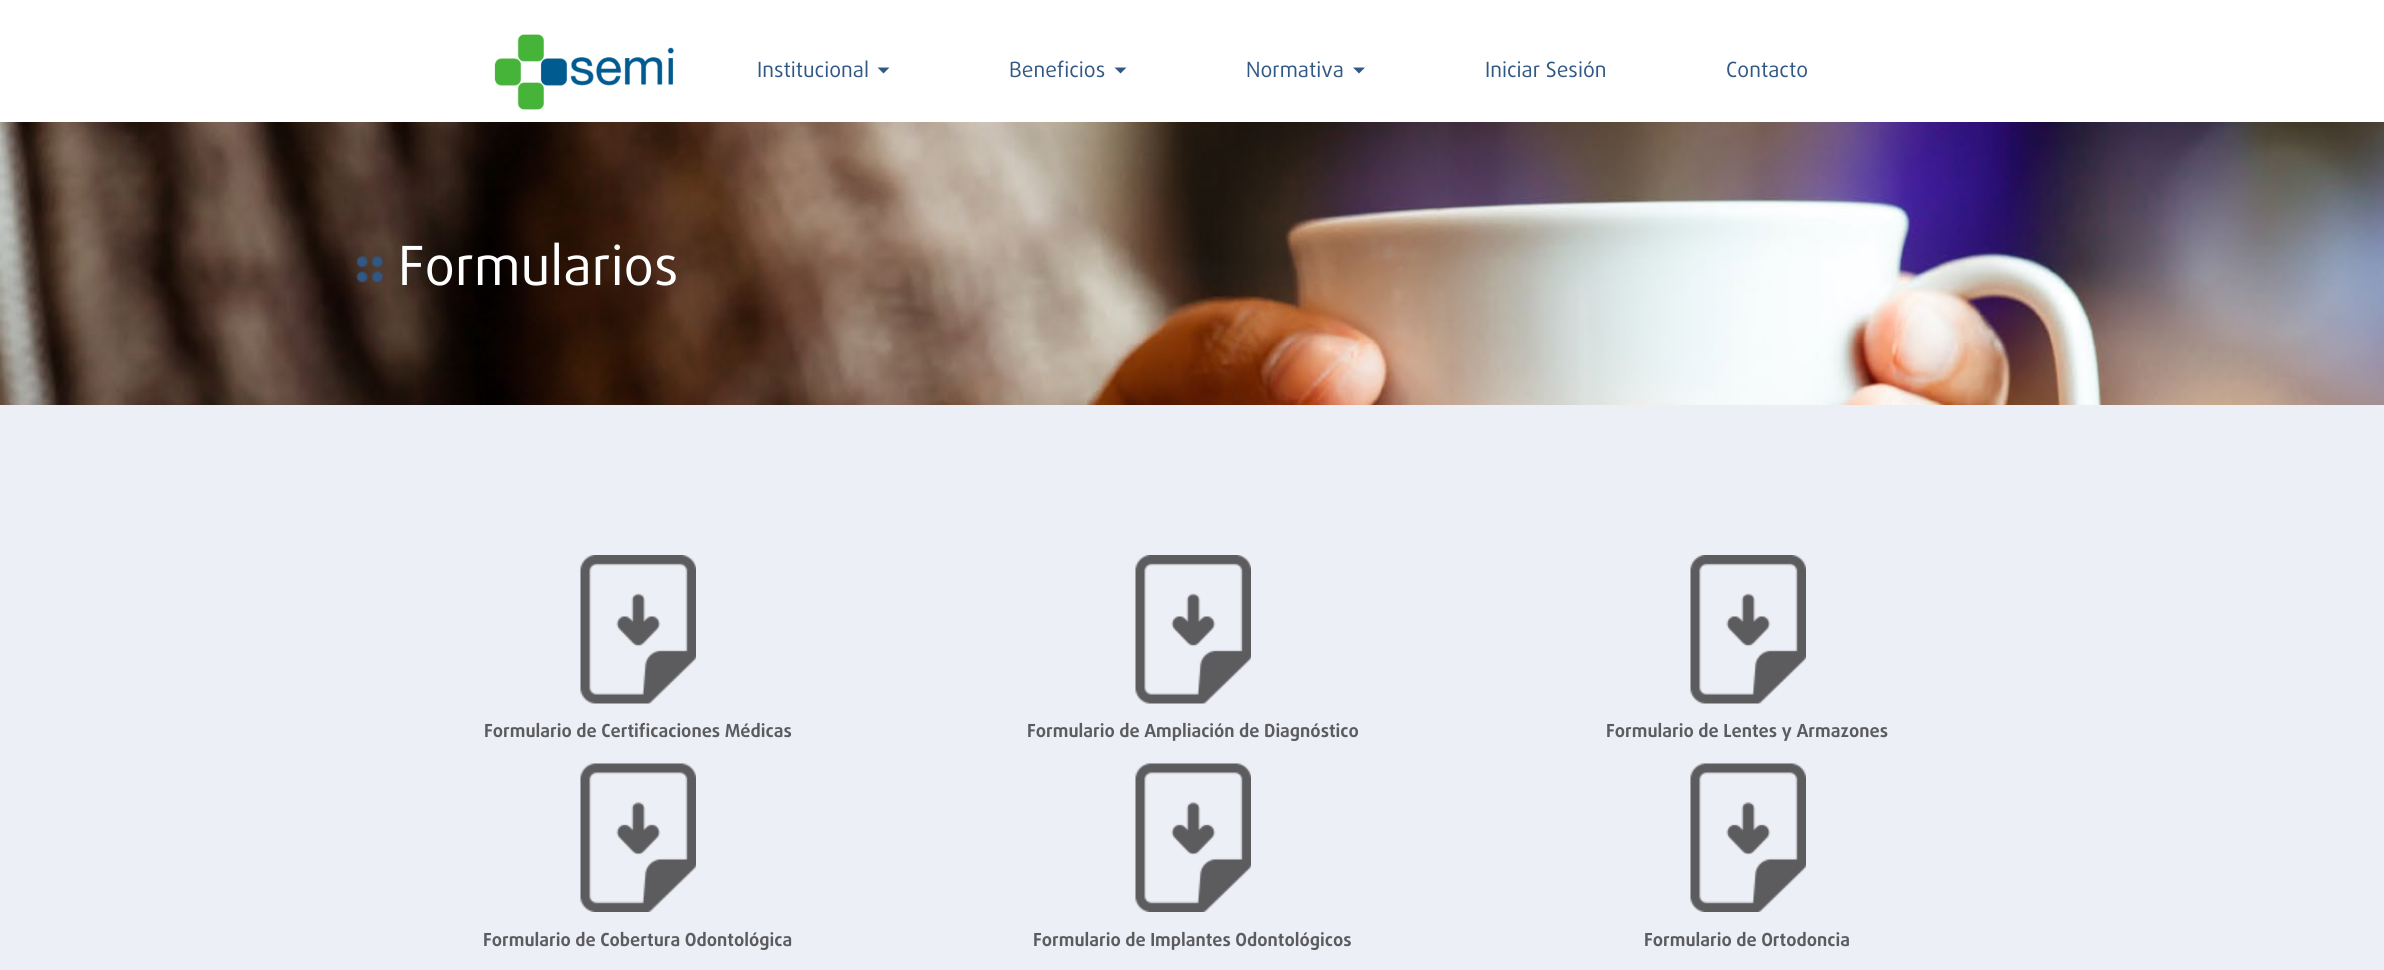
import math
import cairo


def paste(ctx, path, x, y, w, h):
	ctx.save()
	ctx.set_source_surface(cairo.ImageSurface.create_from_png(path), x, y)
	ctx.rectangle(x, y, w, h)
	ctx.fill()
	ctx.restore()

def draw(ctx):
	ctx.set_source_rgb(1, 1, 1)
	ctx.paint()
	paste(ctx, 'media/1.png', 494, 34, 180, 76)
	ctx.select_font_face('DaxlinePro')
	ctx.set_font_size(21)
	ctx.set_source_rgb(0.192, 0.345, 0.522)
	ctx.move_to(757, 77)
	ctx.show_text('Institucional')
	ctx.new_path()
	ctx.move_to(877.5, 67.5)
	ctx.line_to(889.5, 67.5)
	ctx.line_to(883.5, 73.5)
	ctx.close_path()
	ctx.fill()
	ctx.move_to(1009, 77)
	ctx.show_text('Beneficios')
	ctx.new_path()
	ctx.move_to(1114.5, 67.5)
	ctx.line_to(1126.5, 67.5)
	ctx.line_to(1120.5, 73.5)
	ctx.close_path()
	ctx.fill()
	ctx.move_to(1246, 77)
	ctx.show_text('Normativa')
	ctx.new_path()
	ctx.move_to(1353, 67.5)
	ctx.line_to(1365, 67.5)
	ctx.line_to(1359, 73.5)
	ctx.close_path()
	ctx.fill()
	ctx.move_to(1485, 77)
	ctx.show_text('Iniciar Sesión')
	ctx.move_to(1726, 77)
	ctx.show_text('Contacto')
	paste(ctx, 'media/2.png', 0, 122, 2384, 283)
	paste(ctx, 'media/3.png', 356, 256, 27, 27)
	ctx.set_font_size(54)
	ctx.set_source_rgb(1, 1, 1)
	ctx.move_to(398, 285)
	ctx.show_text('Formularios')
	ctx.set_source_rgb(0.929, 0.937, 0.961)
	ctx.rectangle(0, 405, 2384, 565)
	ctx.fill()
	paste(ctx, 'media/4.png', 580, 555, 116, 149)
	ctx.select_font_face('DaxlinePro', cairo.FONT_SLANT_NORMAL, cairo.FONT_WEIGHT_BOLD)
	ctx.set_font_size(18)
	ctx.set_source_rgb(0.361, 0.361, 0.373)
	ctx.move_to(484, 737)
	ctx.show_text('Formulario de Certificaciones Médicas')
	paste(ctx, 'media/4.png', 1135, 555, 116, 149)
	ctx.move_to(1027, 737)
	ctx.show_text('Formulario de Ampliación de Diagnóstico')
	paste(ctx, 'media/5.png', 1690, 555, 116, 149)
	ctx.move_to(1606, 737)
	ctx.show_text('Formulario de Lentes y Armazones')
	paste(ctx, 'media/6.png', 580, 763, 116, 149)
	ctx.move_to(483, 946)
	ctx.show_text('Formulario de Cobertura Odontológica')
	paste(ctx, 'media/7.png', 1135, 763, 116, 149)
	ctx.move_to(1033, 946)
	ctx.show_text('Formulario de Implantes Odontológicos')
	paste(ctx, 'media/8.png', 1690, 763, 116, 149)
	ctx.move_to(1644, 946)
	ctx.show_text('Formulario de Ortodoncia')


surface = cairo.ImageSurface(cairo.FORMAT_RGB24, 2384, 970)
ctx = cairo.Context(surface)
options = cairo.FontOptions()
options.set_hint_metrics(cairo.HINT_METRICS_OFF)
options.set_hint_style(cairo.HINT_STYLE_NONE)
ctx.set_font_options(options)
ctx.set_miter_limit(4)
draw(ctx)
surface.write_to_png('image.png')
